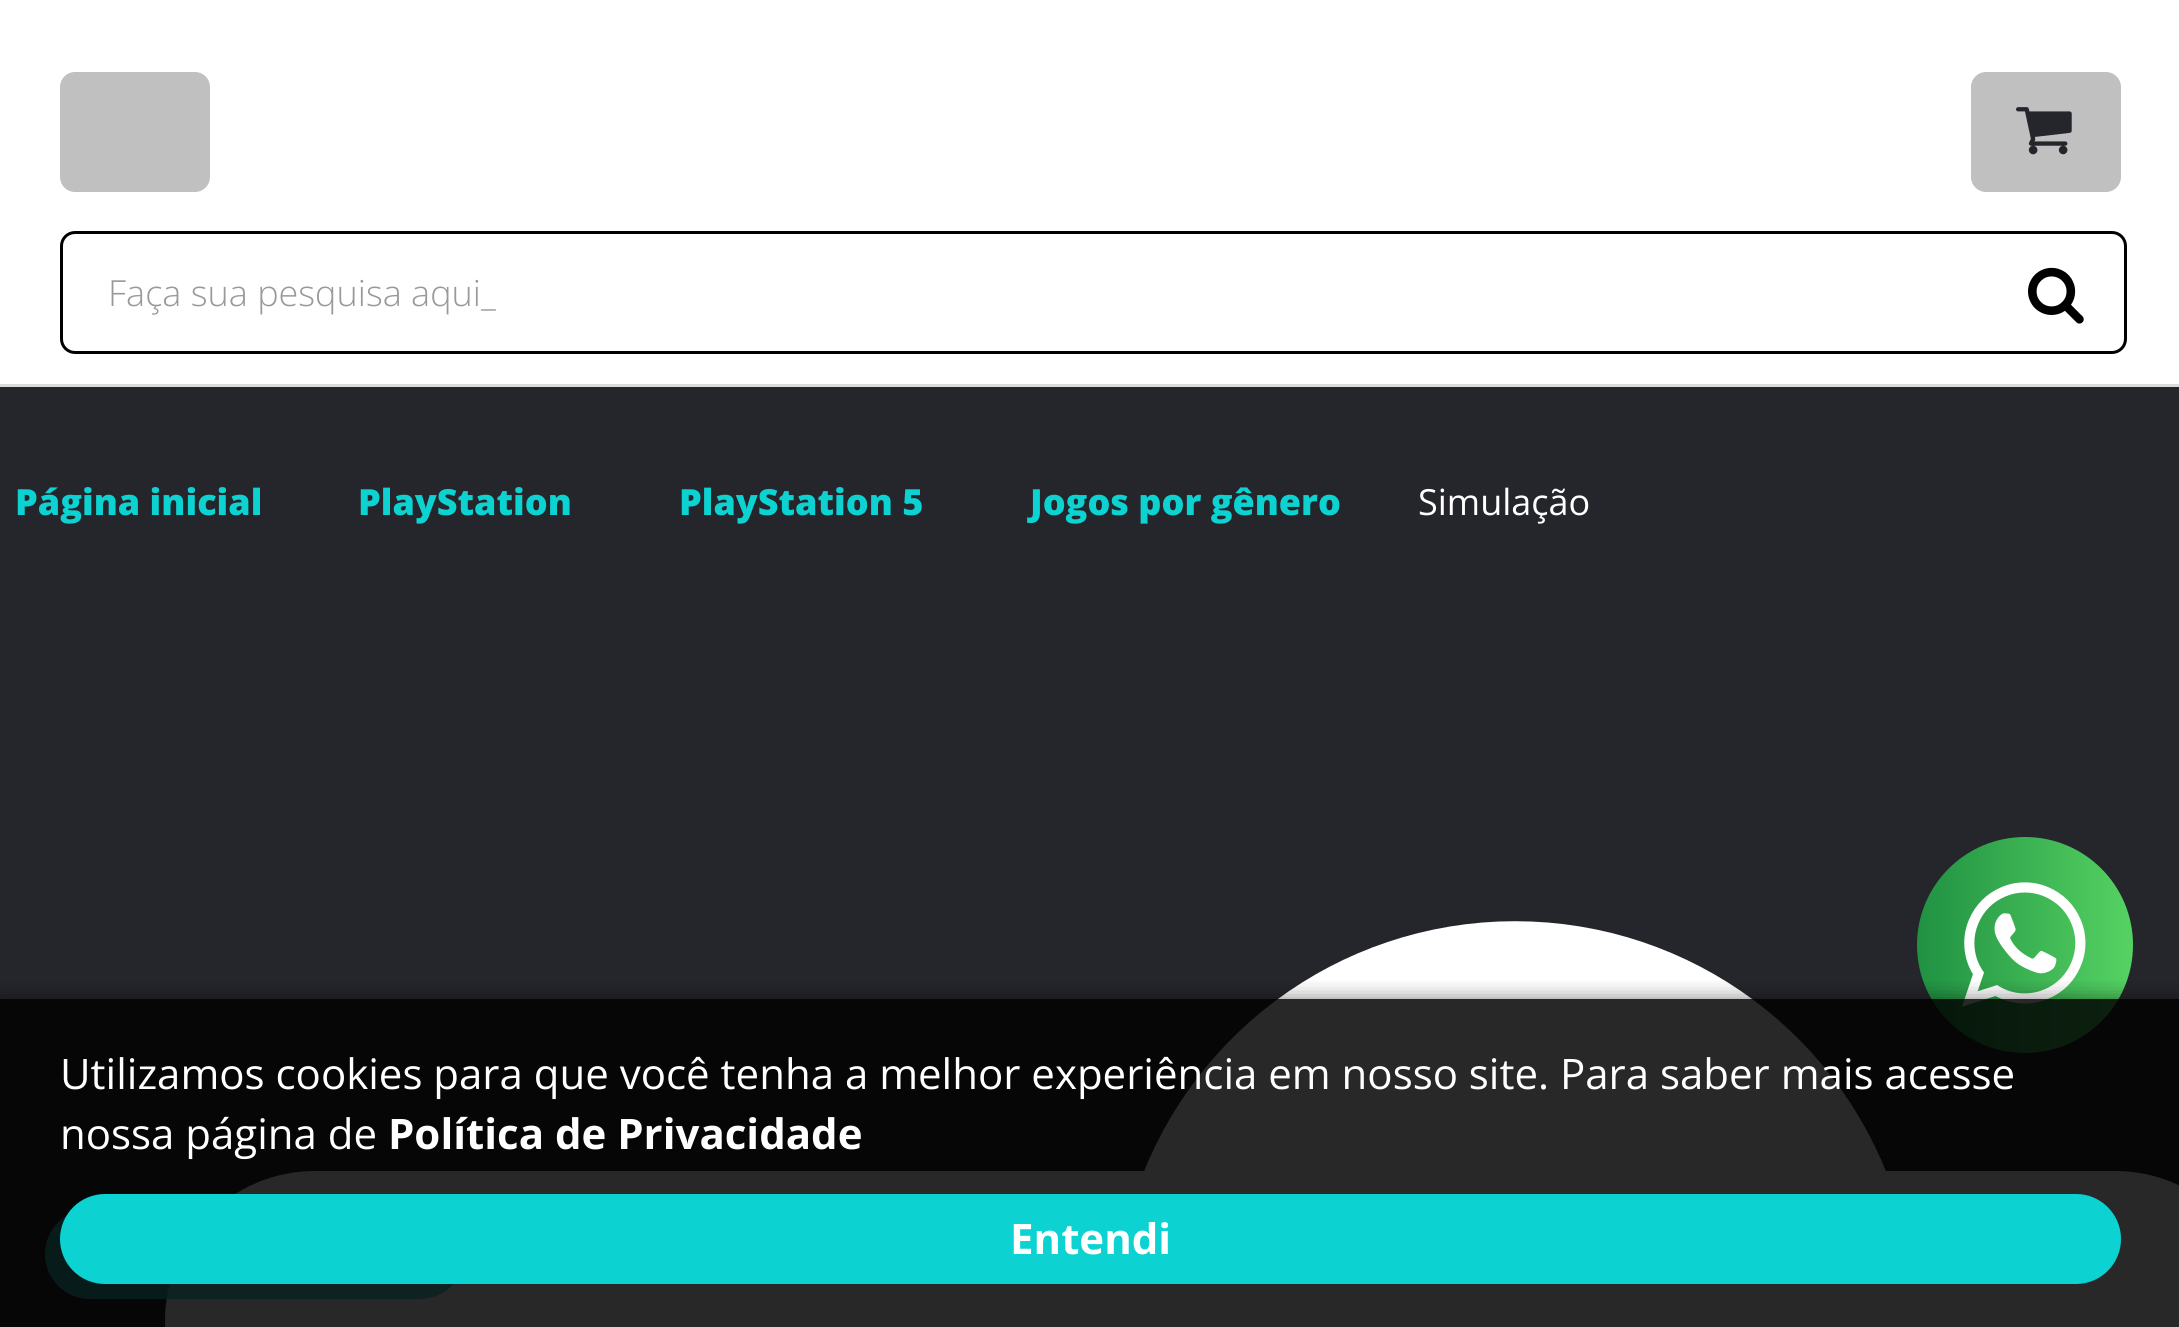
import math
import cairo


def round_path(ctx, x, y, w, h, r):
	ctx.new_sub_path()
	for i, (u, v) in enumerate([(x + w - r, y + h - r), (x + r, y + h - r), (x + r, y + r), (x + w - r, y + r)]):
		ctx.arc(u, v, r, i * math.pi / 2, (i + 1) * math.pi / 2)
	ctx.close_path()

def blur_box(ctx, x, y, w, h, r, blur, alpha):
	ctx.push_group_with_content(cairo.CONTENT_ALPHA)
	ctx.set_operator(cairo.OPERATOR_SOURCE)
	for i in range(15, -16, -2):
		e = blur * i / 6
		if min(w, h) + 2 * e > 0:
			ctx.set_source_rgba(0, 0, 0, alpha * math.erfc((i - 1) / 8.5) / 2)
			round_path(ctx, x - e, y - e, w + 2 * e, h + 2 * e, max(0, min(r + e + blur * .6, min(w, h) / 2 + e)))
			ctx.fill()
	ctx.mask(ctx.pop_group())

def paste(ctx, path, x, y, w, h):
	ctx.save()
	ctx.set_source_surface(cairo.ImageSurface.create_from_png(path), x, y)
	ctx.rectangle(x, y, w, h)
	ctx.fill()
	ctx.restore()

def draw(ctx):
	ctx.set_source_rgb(0.145, 0.149, 0.173)
	ctx.paint()
	ctx.set_source_rgb(0.859, 0.859, 0.859)
	ctx.rectangle(0, 384, 2179, 3)
	ctx.fill()
	ctx.set_source_rgb(1, 1, 1)
	ctx.rectangle(0, 0, 2179, 384)
	ctx.fill()
	ctx.set_source_rgb(0.753, 0.753, 0.753)
	round_path(ctx, 60, 72, 150, 120, 15)
	ctx.fill()
	round_path(ctx, 1971, 72, 150, 120, 15)
	ctx.fill()
	paste(ctx, 'media/1.png', 2016, 107, 56, 48)
	round_path(ctx, 61.5, 232.5, 2064, 120, 13.5)
	ctx.set_source_rgb(0, 0, 0)
	ctx.set_line_width(3)
	ctx.stroke()
	ctx.select_font_face('Open Sans Light')
	ctx.set_font_size(36)
	ctx.set_source_rgb(0.6, 0.6, 0.6)
	ctx.move_to(108, 306)
	ctx.show_text('Faça sua pesquisa aqui_')
	paste(ctx, 'media/2.png', 2028, 267, 56, 57)
	ctx.select_font_face('Open Sans ExtraBold')
	ctx.set_source_rgb(0.047, 0.827, 0.824)
	for x, y, s in [
		(15, 515, 'Página inicial'),
		(358, 515, 'PlayStation'),
		(679, 515, 'PlayStation 5'),
		(1030, 515, 'Jogos por gênero'),
	]:
		ctx.move_to(x, y)
		ctx.show_text(s)
	ctx.select_font_face('Open Sans')
	ctx.set_source_rgb(1, 1, 1)
	ctx.move_to(1418, 515)
	ctx.show_text('Simulação')
	paste(ctx, 'media/3.png', 165, 921, 2014, 406)
	ctx.set_source_rgba(0.22, 0.816, 0.812, 0.8)
	round_path(ctx, 45, 1209, 420, 90, 45)
	ctx.fill()
	gradient = cairo.LinearGradient(1917, 945, 2133, 945)
	gradient.add_color_stop_rgba(0, 0.125, 0.569, 0.259, 1)
	gradient.add_color_stop_rgba(1, 0.337, 0.824, 0.388, 1)
	ctx.set_source(gradient)
	ctx.arc(2025, 945, 108, 0, 2 * math.pi)
	ctx.fill()
	paste(ctx, 'media/4.png', 1962, 882, 124, 125)
	ctx.save()
	ctx.rectangle(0, 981, 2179, 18)
	ctx.clip()
	ctx.set_source_rgb(0, 0, 0)
	blur_box(ctx, 0, 999, 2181, 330, 0, 10.5, 0.5)
	ctx.restore()
	ctx.set_source_rgba(0, 0, 0, 0.84)
	ctx.rectangle(0, 999, 2179, 328)
	ctx.fill()
	ctx.set_font_size(42)
	ctx.set_source_rgb(1, 1, 1)
	ctx.move_to(60, 1089)
	ctx.show_text('Utilizamos cookies para que você tenha a melhor experiência em nosso site. Para saber mais acesse')
	ctx.move_to(60, 1149)
	ctx.show_text('nossa página de')
	ctx.select_font_face('Open Sans', cairo.FONT_SLANT_NORMAL, cairo.FONT_WEIGHT_BOLD)
	ctx.move_to(388, 1149)
	ctx.show_text('Política de Privacidade')
	ctx.set_source_rgb(0.047, 0.827, 0.824)
	round_path(ctx, 60, 1194, 2061, 90, 45)
	ctx.fill()
	ctx.set_source_rgb(1, 1, 1)
	ctx.move_to(1010, 1254)
	ctx.show_text('Entendi')


surface = cairo.ImageSurface(cairo.FORMAT_RGB24, 2179, 1327)
ctx = cairo.Context(surface)
options = cairo.FontOptions()
options.set_hint_metrics(cairo.HINT_METRICS_OFF)
options.set_hint_style(cairo.HINT_STYLE_NONE)
ctx.set_font_options(options)
ctx.set_miter_limit(4)
draw(ctx)
surface.write_to_png('image.png')
